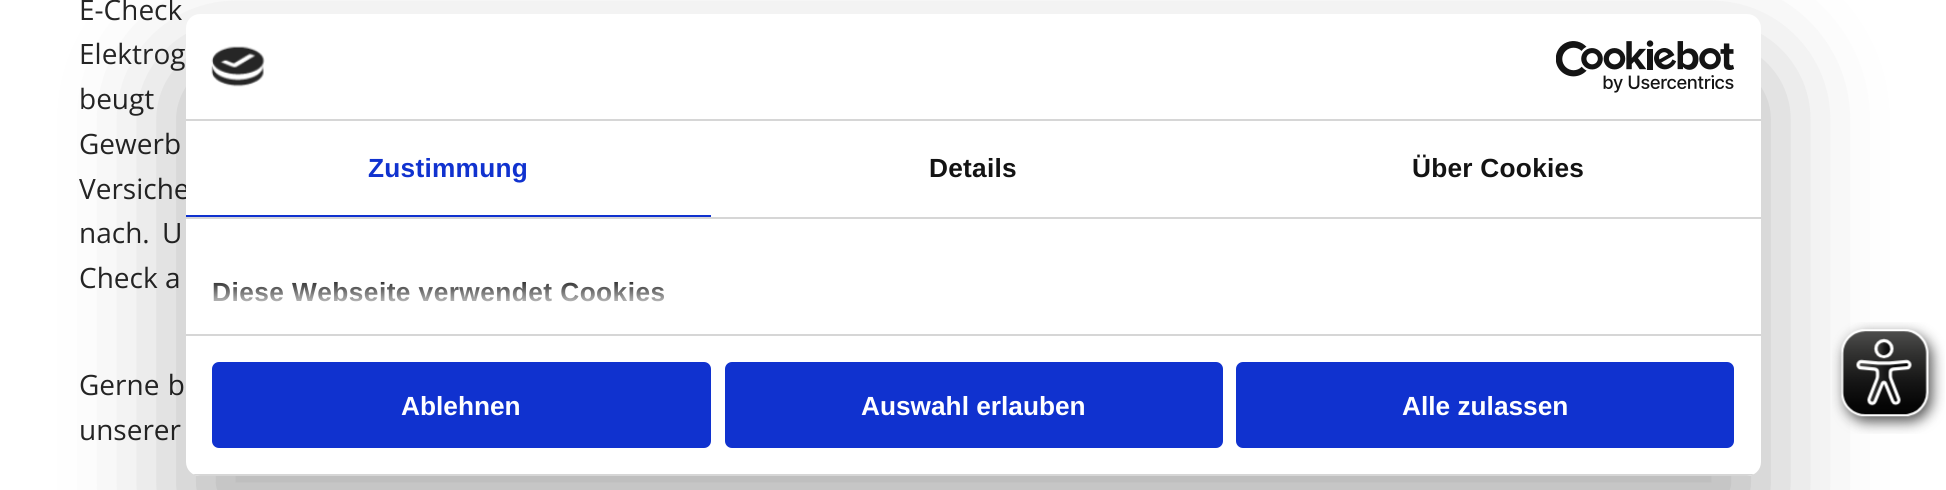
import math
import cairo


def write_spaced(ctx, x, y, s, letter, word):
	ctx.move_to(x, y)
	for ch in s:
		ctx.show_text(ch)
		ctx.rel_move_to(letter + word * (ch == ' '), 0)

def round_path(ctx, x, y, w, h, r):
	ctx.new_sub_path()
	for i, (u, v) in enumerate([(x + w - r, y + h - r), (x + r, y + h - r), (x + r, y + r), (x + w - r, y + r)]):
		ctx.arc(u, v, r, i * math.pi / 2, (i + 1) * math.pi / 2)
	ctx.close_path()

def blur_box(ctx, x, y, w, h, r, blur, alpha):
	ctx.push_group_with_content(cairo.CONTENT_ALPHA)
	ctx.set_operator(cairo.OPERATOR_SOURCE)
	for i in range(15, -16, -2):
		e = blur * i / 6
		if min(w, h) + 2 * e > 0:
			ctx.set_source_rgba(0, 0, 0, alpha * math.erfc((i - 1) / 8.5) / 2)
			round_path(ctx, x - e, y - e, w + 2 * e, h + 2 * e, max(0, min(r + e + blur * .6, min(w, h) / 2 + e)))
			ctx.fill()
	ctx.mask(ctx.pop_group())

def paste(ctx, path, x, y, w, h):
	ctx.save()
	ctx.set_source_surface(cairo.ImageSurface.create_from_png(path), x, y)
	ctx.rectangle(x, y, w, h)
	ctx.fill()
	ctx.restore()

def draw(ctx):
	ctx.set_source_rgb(1, 1, 1)
	ctx.paint()
	ctx.select_font_face('Open Sans')
	ctx.set_font_size(28)
	ctx.set_source_rgb(0.145, 0.145, 0.145)
	write_spaced(ctx, 79, 20, 'E-Check', 0, 8)
	write_spaced(ctx, 79, 64, 'Elektrog', 0, 12)
	write_spaced(ctx, 79, 109, 'beugt', 0, 20)
	write_spaced(ctx, 79, 154, 'Gewerb', 0, 78)
	write_spaced(ctx, 79, 199, 'Versiche', 0, 8)
	write_spaced(ctx, 79, 243, 'nach. U', 0, 5)
	ctx.move_to(79, 288)
	ctx.show_text('Check a')
	write_spaced(ctx, 79, 395, 'Gerne b', 0, 1)
	ctx.move_to(79, 440)
	ctx.show_text('unserer')
	ctx.set_source_rgb(0, 0, 0)
	blur_box(ctx, 186, 70, 1575, 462, 14, 59.5, 0.3)
	ctx.set_source_rgb(1, 1, 1)
	round_path(ctx, 186, 14, 1575, 462, 14)
	ctx.fill()
	ctx.set_source_rgb(0.839, 0.839, 0.839)
	ctx.rectangle(186, 119, 1575, 2)
	ctx.fill()
	paste(ctx, 'media/1.png', 211, 46, 54, 41)
	paste(ctx, 'media/2.png', 1556, 40, 178, 53)
	ctx.rectangle(186, 217, 1575, 2)
	ctx.fill()
	ctx.set_source_rgb(0.063, 0.196, 0.812)
	ctx.rectangle(186, 215, 525, 2)
	ctx.fill()
	ctx.select_font_face('Liberation Sans', cairo.FONT_SLANT_NORMAL, cairo.FONT_WEIGHT_BOLD)
	ctx.set_font_size(26.25)
	write_spaced(ctx, 368, 177, 'Zustimmung', 0.25, 0)
	ctx.set_source_rgb(0.078, 0.078, 0.078)
	write_spaced(ctx, 929, 177, 'Details', 0.25, 0)
	write_spaced(ctx, 1412, 177, 'Über Cookies', 0.25, 0)
	ctx.set_source_rgb(0.839, 0.839, 0.839)
	ctx.rectangle(186, 334, 1575, 2)
	ctx.fill()
	ctx.set_source_rgb(0.078, 0.078, 0.078)
	write_spaced(ctx, 212, 301, 'Diese Webseite verwendet Cookies', 0.45, 0)
	gradient = cairo.LinearGradient(962, 334, 962, 277)
	gradient.add_color_stop_rgba(0, 1, 1, 1, 1)
	gradient.add_color_stop_rgba(0.5, 1, 1, 1, 0.8)
	gradient.add_color_stop_rgba(1, 1, 1, 1, 0)
	ctx.set_source(gradient)
	ctx.rectangle(213, 282, 451, 20)
	ctx.fill()
	ctx.save()
	round_path(ctx, 186, 14, 1575, 462, 14)
	ctx.clip()
	ctx.set_source_rgb(0.839, 0.839, 0.839)
	ctx.rectangle(186, 474, 1575, 2)
	ctx.fill()
	ctx.restore()
	ctx.set_source_rgb(0.063, 0.196, 0.812)
	round_path(ctx, 214, 364, 495, 82, 5)
	ctx.fill_preserve()
	ctx.set_line_width(4)
	ctx.stroke()
	ctx.set_source_rgb(1, 1, 1)
	ctx.move_to(401, 415)
	ctx.show_text('Ablehnen')
	ctx.set_source_rgb(0.063, 0.196, 0.812)
	round_path(ctx, 727, 364, 494, 82, 5)
	ctx.fill_preserve()
	ctx.stroke()
	ctx.set_source_rgb(1, 1, 1)
	ctx.move_to(861, 415)
	ctx.show_text('Auswahl erlauben')
	ctx.set_source_rgb(0.063, 0.196, 0.812)
	round_path(ctx, 1238, 364, 494, 82, 5)
	ctx.fill_preserve()
	ctx.stroke()
	ctx.set_source_rgb(1, 1, 1)
	ctx.move_to(1402, 415)
	ctx.show_text('Alle zulassen')
	paste(ctx, 'media/3.png', 1832, 322, 113, 112)


surface = cairo.ImageSurface(cairo.FORMAT_RGB24, 1946, 490)
ctx = cairo.Context(surface)
options = cairo.FontOptions()
options.set_hint_metrics(cairo.HINT_METRICS_OFF)
options.set_hint_style(cairo.HINT_STYLE_NONE)
ctx.set_font_options(options)
ctx.set_miter_limit(4)
draw(ctx)
surface.write_to_png('image.png')
